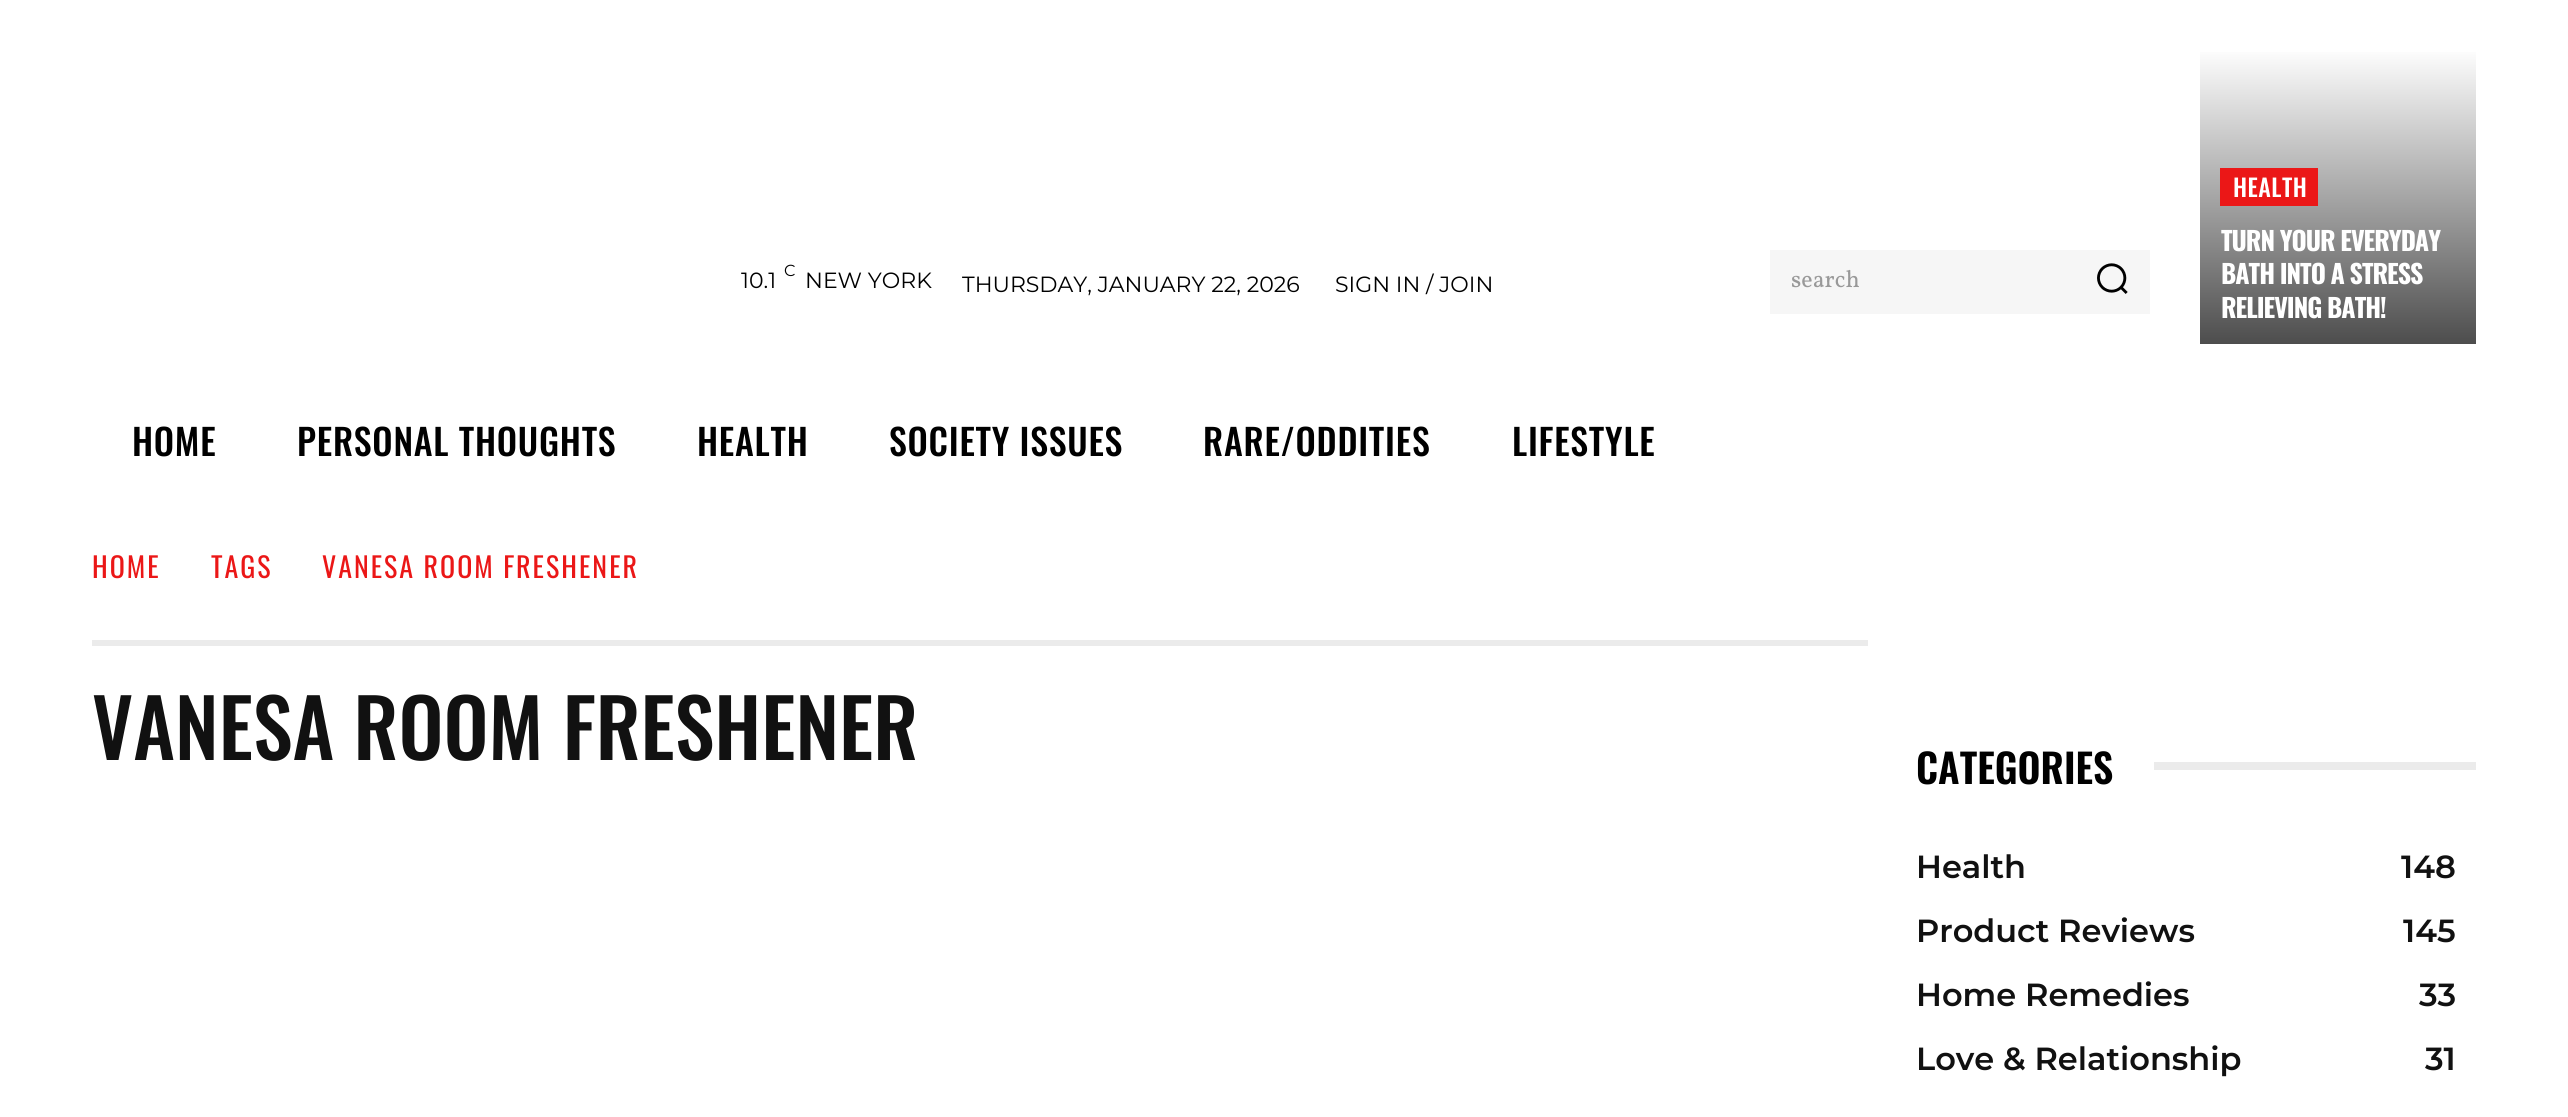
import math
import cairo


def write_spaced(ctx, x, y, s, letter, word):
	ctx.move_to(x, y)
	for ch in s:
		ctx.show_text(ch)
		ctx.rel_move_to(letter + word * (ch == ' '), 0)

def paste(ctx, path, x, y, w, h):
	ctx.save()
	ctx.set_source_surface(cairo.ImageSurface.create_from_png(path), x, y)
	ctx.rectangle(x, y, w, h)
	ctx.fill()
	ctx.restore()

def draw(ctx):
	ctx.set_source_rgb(1, 1, 1)
	ctx.paint()
	ctx.select_font_face('Montserrat')
	ctx.set_font_size(16)
	ctx.set_source_rgb(0, 0, 0)
	ctx.move_to(784, 276)
	ctx.show_text('C')
	ctx.set_font_size(22)
	for x, y, s in [
		(741, 288, '10.1'),
		(805, 288, 'NEW YORK'),
		(962, 292, 'THURSDAY, JANUARY 22, 2026'),
		(1335, 292, 'SIGN IN / JOIN'),
	]:
		ctx.move_to(x, y)
		ctx.show_text(s)
	ctx.set_source_rgb(0.961, 0.961, 0.961)
	ctx.rectangle(1770, 250, 380, 64)
	ctx.fill()
	ctx.select_font_face('Vollkorn')
	ctx.set_font_size(24)
	ctx.set_source_rgb(0.6, 0.6, 0.6)
	ctx.move_to(1791, 287)
	ctx.show_text('search')
	paste(ctx, 'media/1.png', 2097, 263, 31, 31)
	gradient = cairo.LinearGradient(2338, 344, 2338, 48)
	gradient.add_color_stop_rgba(0, 0.302, 0.302, 0.302, 1)
	gradient.add_color_stop_rgba(1, 1, 1, 1, 1)
	ctx.set_source(gradient)
	ctx.rectangle(2200, 52, 276, 292)
	ctx.fill()
	ctx.set_source_rgb(0.918, 0.09, 0.09)
	ctx.rectangle(2220, 168, 98, 38)
	ctx.fill()
	ctx.select_font_face('Oswald Medium')
	ctx.set_source_rgb(1, 1, 1)
	write_spaced(ctx, 2233, 197, 'HEALTH', 0.5, 0)
	ctx.select_font_face('Oswald', cairo.FONT_SLANT_NORMAL, cairo.FONT_WEIGHT_BOLD)
	ctx.set_font_size(26)
	for x, y, s in [
		(2221, 251, 'TURN YOUR EVERYDAY'),
		(2221, 284, 'BATH INTO A STRESS'),
		(2221, 318, 'RELIEVING BATH!'),
	]:
		write_spaced(ctx, x, y, s, -1, 0)
	ctx.select_font_face('Oswald Medium')
	ctx.set_font_size(36)
	ctx.set_source_rgb(0, 0, 0)
	for x, y, s in [
		(132, 456, 'HOME'),
		(297, 456, 'PERSONAL THOUGHTS'),
		(697, 456, 'HEALTH'),
		(889, 456, 'SOCIETY ISSUES'),
		(1203, 456, 'RARE/ODDITIES'),
		(1512, 456, 'LIFESTYLE'),
	]:
		write_spaced(ctx, x, y, s, 0.75, 0)
	ctx.select_font_face('Oswald')
	ctx.set_font_size(28)
	ctx.set_source_rgb(0.918, 0.09, 0.09)
	for x, y, s in [
		(92, 578, 'HOME'),
		(211, 578, 'TAGS'),
		(322, 578, 'VANESA ROOM FRESHENER'),
	]:
		write_spaced(ctx, x, y, s, 2, 0)
	ctx.set_source_rgb(0.918, 0.918, 0.918)
	ctx.rectangle(92, 640, 1776, 6)
	ctx.fill()
	ctx.select_font_face('Oswald Medium')
	ctx.set_font_size(80)
	ctx.set_source_rgb(0.067, 0.067, 0.067)
	ctx.move_to(92, 760)
	ctx.show_text('VANESA ROOM FRESHENER')
	ctx.select_font_face('Oswald SemiBold')
	ctx.set_font_size(40)
	ctx.set_source_rgb(0, 0, 0)
	ctx.move_to(1916, 784)
	ctx.show_text('CATEGORIES')
	ctx.set_source_rgb(0.918, 0.918, 0.918)
	ctx.rectangle(2154, 762, 322, 8)
	ctx.fill()
	ctx.select_font_face('Montserrat SemiBold')
	ctx.set_font_size(32)
	ctx.set_source_rgb(0.067, 0.067, 0.067)
	for x, y, s in [
		(1916, 878, 'Health'),
		(2401, 878, '148'),
		(1916, 942, 'Product Reviews'),
		(2403, 942, '145'),
		(1916, 1006, 'Home Remedies'),
		(2419, 1006, '33'),
		(1916, 1070, 'Love & Relationship'),
		(2425, 1070, '31'),
	]:
		ctx.move_to(x, y)
		ctx.show_text(s)


surface = cairo.ImageSurface(cairo.FORMAT_RGB24, 2568, 1117)
ctx = cairo.Context(surface)
options = cairo.FontOptions()
options.set_hint_metrics(cairo.HINT_METRICS_OFF)
options.set_hint_style(cairo.HINT_STYLE_NONE)
ctx.set_font_options(options)
ctx.set_miter_limit(4)
draw(ctx)
surface.write_to_png('image.png')
